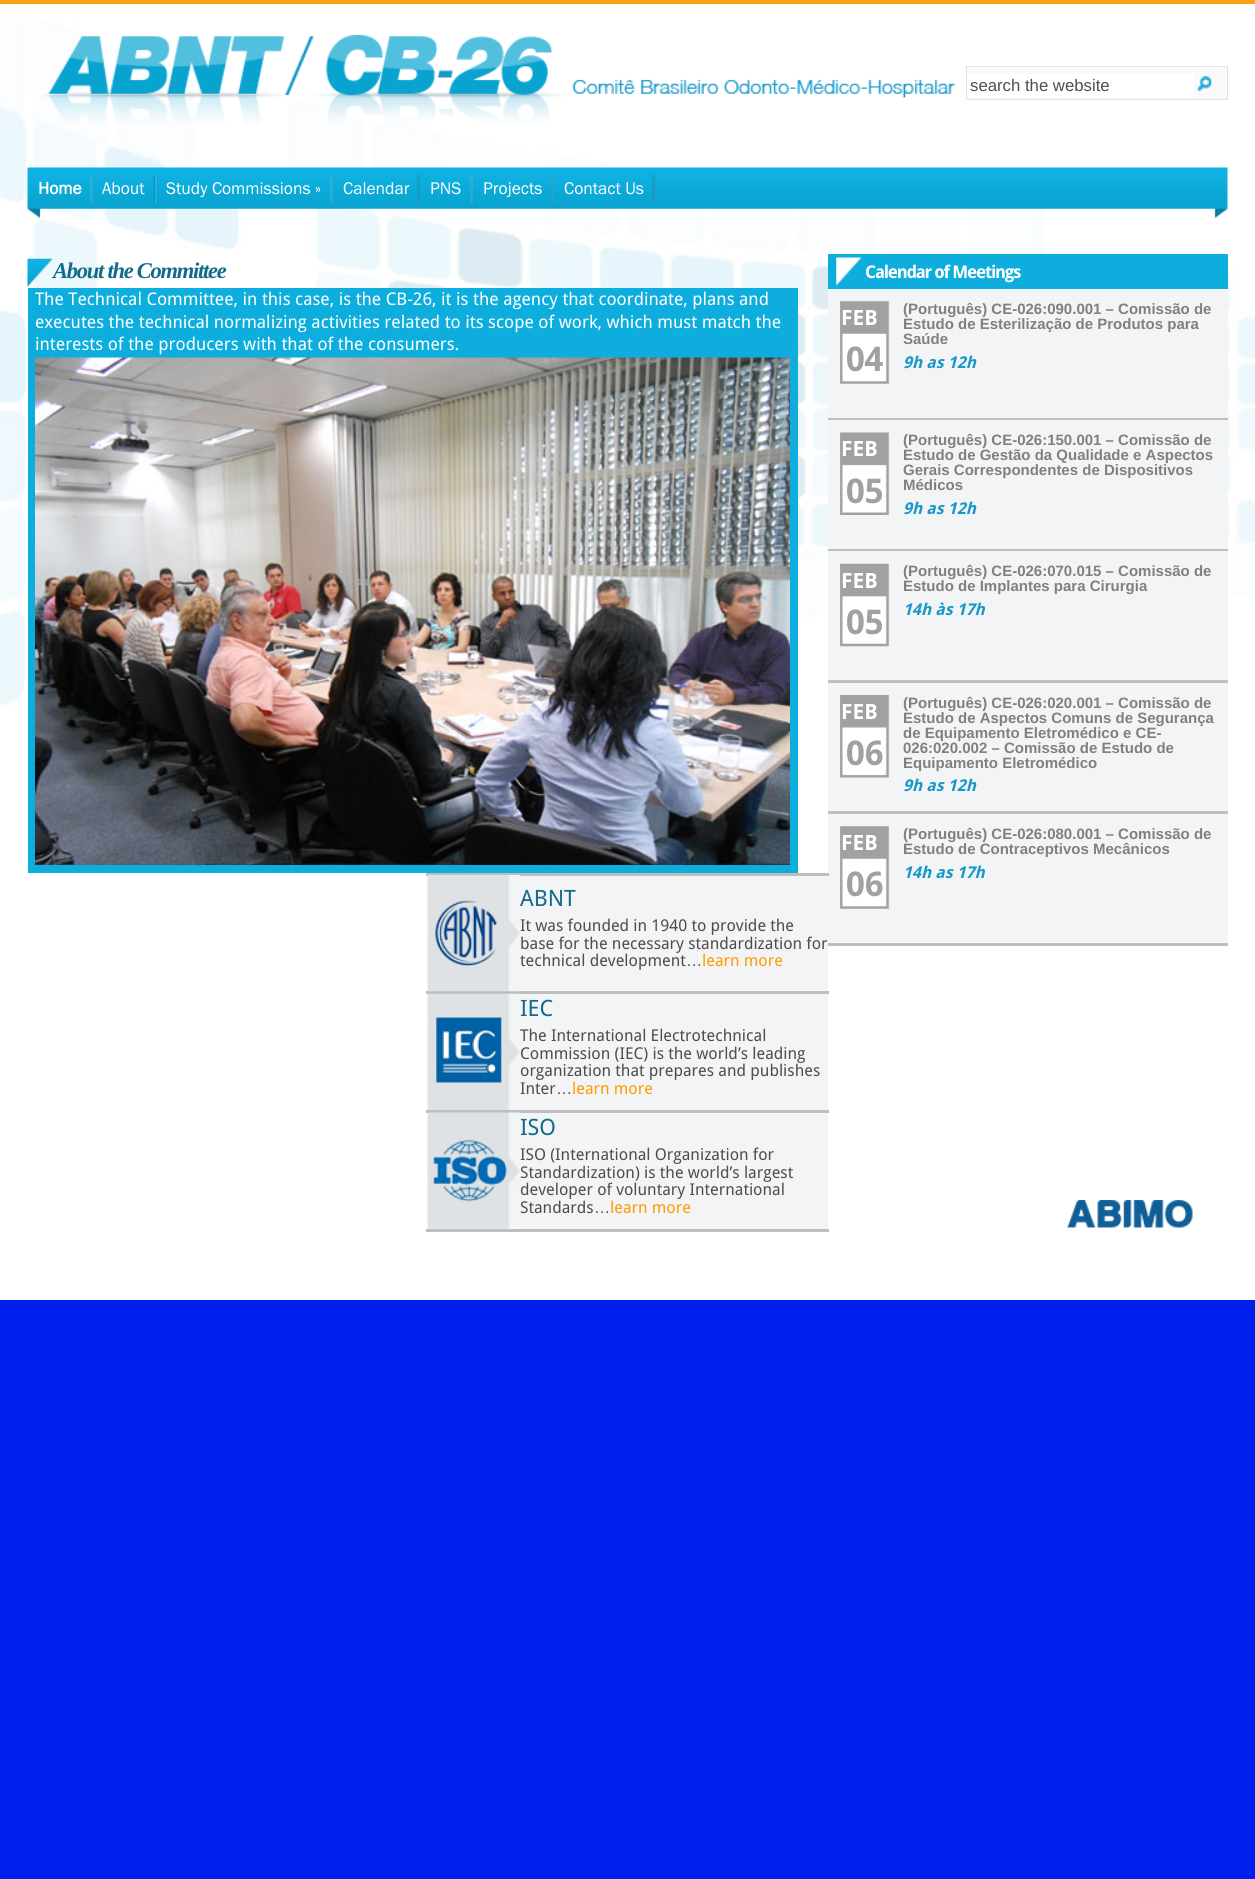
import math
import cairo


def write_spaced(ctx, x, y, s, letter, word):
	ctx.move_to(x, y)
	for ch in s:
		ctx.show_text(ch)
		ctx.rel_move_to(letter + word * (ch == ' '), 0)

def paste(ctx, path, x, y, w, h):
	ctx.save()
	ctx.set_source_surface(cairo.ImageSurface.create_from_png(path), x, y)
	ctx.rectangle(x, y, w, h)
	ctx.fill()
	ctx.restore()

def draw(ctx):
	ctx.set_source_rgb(0, 0.122, 0.937)
	ctx.paint()
	ctx.set_source_rgb(1, 1, 1)
	ctx.rectangle(0, 4, 1255, 1296)
	ctx.fill()
	paste(ctx, 'media/1.png', 0, 7, 1255, 738)
	ctx.set_source_rgb(0.984, 0.635, 0.09)
	ctx.rectangle(0, 0, 1255, 4)
	ctx.fill()
	paste(ctx, 'media/2.png', 41, 35, 914, 89)
	ctx.set_source_rgb(0.98, 0.98, 0.98)
	ctx.rectangle(966.5, 66.5, 261, 33)
	ctx.fill_preserve()
	ctx.set_source_rgb(0.886, 0.886, 0.886)
	ctx.set_line_width(1)
	ctx.stroke()
	ctx.set_source_rgb(1, 1, 1)
	ctx.rectangle(968, 74, 226, 24)
	ctx.fill()
	ctx.select_font_face('Liberation Sans')
	ctx.set_font_size(16.75)
	ctx.set_source_rgb(0.306, 0.306, 0.306)
	ctx.move_to(970, 91)
	ctx.show_text('search the website')
	paste(ctx, 'media/3.png', 1197, 76, 15, 16)
	paste(ctx, 'media/4.png', 27, 167, 1201, 52)
	ctx.set_source_rgba(0.349, 0.69, 0.788, 0.4)
	ctx.rectangle(90, 175, 3, 28)
	ctx.fill()
	ctx.select_font_face('Franklin Gothic', cairo.FONT_SLANT_NORMAL, cairo.FONT_WEIGHT_BOLD)
	ctx.set_font_size(17.5)
	ctx.set_source_rgb(1, 1, 1)
	ctx.move_to(38, 194)
	ctx.show_text('Home')
	paste(ctx, 'media/5.png', 153, 175, 4, 28)
	ctx.select_font_face('Franklin Gothic')
	ctx.move_to(102, 194)
	ctx.show_text('About')
	ctx.set_source_rgba(0.349, 0.69, 0.788, 0.4)
	ctx.rectangle(330, 175, 3, 28)
	ctx.fill()
	ctx.set_source_rgb(1, 1, 1)
	ctx.move_to(166, 194)
	ctx.show_text('Study Commissions »')
	ctx.set_source_rgba(0.106, 0.584, 0.718, 0.71)
	ctx.rectangle(417, 175, 3, 28)
	ctx.fill()
	ctx.set_source_rgb(1, 1, 1)
	ctx.move_to(343, 194)
	ctx.show_text('Calendar')
	ctx.set_source_rgba(0.349, 0.69, 0.788, 0.4)
	ctx.rectangle(470, 175, 3, 28)
	ctx.fill()
	ctx.set_source_rgb(1, 1, 1)
	ctx.move_to(430, 194)
	ctx.show_text('PNS')
	ctx.set_source_rgba(0.212, 0.631, 0.749, 0.53)
	ctx.rectangle(551, 175, 3, 28)
	ctx.fill()
	ctx.set_source_rgb(1, 1, 1)
	ctx.move_to(483, 194)
	ctx.show_text('Projects')
	ctx.set_source_rgba(0.106, 0.584, 0.718, 0.71)
	ctx.rectangle(652, 175, 3, 28)
	ctx.fill()
	ctx.set_source_rgb(1, 1, 1)
	ctx.move_to(564, 194)
	ctx.show_text('Contact Us')
	paste(ctx, 'media/6.png', 27, 258, 26, 29)
	ctx.select_font_face('Liberation Serif', cairo.FONT_SLANT_ITALIC, cairo.FONT_WEIGHT_BOLD)
	ctx.set_font_size(22.5)
	ctx.set_source_rgb(0.075, 0.42, 0.545)
	write_spaced(ctx, 53, 278, 'About the Committee', -1.25, 0)
	ctx.set_source_rgb(0.051, 0.682, 0.867)
	ctx.rectangle(828, 254, 400, 35)
	ctx.fill()
	paste(ctx, 'media/7.png', 836, 257, 26, 29)
	ctx.select_font_face('Droid Sans', cairo.FONT_SLANT_NORMAL, cairo.FONT_WEIGHT_BOLD)
	ctx.set_font_size(17.5)
	ctx.set_source_rgb(1, 1, 1)
	write_spaced(ctx, 865, 278, 'Calendar of Meetings', -1.25, 0)
	ctx.set_source_rgb(0.953, 0.957, 0.961)
	ctx.rectangle(828, 289, 400, 129)
	ctx.fill()
	paste(ctx, 'media/8.png', 840, 301, 50, 83)
	ctx.set_source_rgb(0.745, 0.745, 0.745)
	ctx.rectangle(828, 418, 400, 2)
	ctx.fill()
	ctx.set_font_size(21)
	ctx.set_source_rgb(1, 1, 1)
	ctx.move_to(841, 325)
	ctx.show_text('FEB')
	ctx.set_font_size(34)
	ctx.set_source_rgb(0.631, 0.631, 0.631)
	ctx.move_to(846, 371)
	ctx.show_text('04')
	ctx.select_font_face('Liberation Sans', cairo.FONT_SLANT_NORMAL, cairo.FONT_WEIGHT_BOLD)
	ctx.set_font_size(15)
	ctx.set_source_rgb(0.502, 0.502, 0.502)
	for x, y, s in [
		(903, 314, '(Português) CE-026:090.001 – Comissão de'),
		(903, 329, 'Estudo de Esterilização de Produtos para'),
		(903, 344, 'Saúde'),
	]:
		ctx.move_to(x, y)
		ctx.show_text(s)
	ctx.select_font_face('Droid Sans', cairo.FONT_SLANT_ITALIC, cairo.FONT_WEIGHT_BOLD)
	ctx.set_font_size(16.25)
	ctx.set_source_rgb(0.086, 0.596, 0.784)
	ctx.move_to(903, 368)
	ctx.show_text('9h as 12h')
	ctx.set_source_rgb(0.953, 0.957, 0.961)
	ctx.rectangle(828, 420, 400, 129)
	ctx.fill()
	paste(ctx, 'media/9.png', 840, 432, 50, 83)
	ctx.set_source_rgb(0.745, 0.745, 0.745)
	ctx.rectangle(828, 549, 400, 2)
	ctx.fill()
	ctx.select_font_face('Droid Sans', cairo.FONT_SLANT_NORMAL, cairo.FONT_WEIGHT_BOLD)
	ctx.set_font_size(21)
	ctx.set_source_rgb(1, 1, 1)
	ctx.move_to(841, 456)
	ctx.show_text('FEB')
	ctx.set_font_size(34)
	ctx.set_source_rgb(0.631, 0.631, 0.631)
	ctx.move_to(846, 503)
	ctx.show_text('05')
	ctx.select_font_face('Liberation Sans', cairo.FONT_SLANT_NORMAL, cairo.FONT_WEIGHT_BOLD)
	ctx.set_font_size(15)
	ctx.set_source_rgb(0.502, 0.502, 0.502)
	for x, y, s in [
		(903, 445, '(Português) CE-026:150.001 – Comissão de'),
		(903, 460, 'Estudo de Gestão da Qualidade e Aspectos'),
		(903, 475, 'Gerais Correspondentes de Dispositivos'),
		(903, 490, 'Médicos'),
	]:
		ctx.move_to(x, y)
		ctx.show_text(s)
	ctx.select_font_face('Droid Sans', cairo.FONT_SLANT_ITALIC, cairo.FONT_WEIGHT_BOLD)
	ctx.set_font_size(16.25)
	ctx.set_source_rgb(0.086, 0.596, 0.784)
	ctx.move_to(903, 514)
	ctx.show_text('9h as 12h')
	ctx.set_source_rgb(0.953, 0.957, 0.961)
	ctx.rectangle(828, 551, 400, 129)
	ctx.fill()
	paste(ctx, 'media/10.png', 840, 563, 50, 84)
	ctx.set_source_rgb(0.745, 0.745, 0.745)
	ctx.rectangle(828, 680, 400, 3)
	ctx.fill()
	ctx.select_font_face('Droid Sans', cairo.FONT_SLANT_NORMAL, cairo.FONT_WEIGHT_BOLD)
	ctx.set_font_size(21)
	ctx.set_source_rgb(1, 1, 1)
	ctx.move_to(841, 588)
	ctx.show_text('FEB')
	ctx.set_font_size(34)
	ctx.set_source_rgb(0.631, 0.631, 0.631)
	ctx.move_to(846, 634)
	ctx.show_text('05')
	ctx.select_font_face('Liberation Sans', cairo.FONT_SLANT_NORMAL, cairo.FONT_WEIGHT_BOLD)
	ctx.set_font_size(15)
	ctx.set_source_rgb(0.502, 0.502, 0.502)
	ctx.move_to(903, 576)
	ctx.show_text('(Português) CE-026:070.015 – Comissão de')
	ctx.move_to(903, 591)
	ctx.show_text('Estudo de Implantes para Cirurgia')
	ctx.select_font_face('Droid Sans', cairo.FONT_SLANT_ITALIC, cairo.FONT_WEIGHT_BOLD)
	ctx.set_font_size(16.25)
	ctx.set_source_rgb(0.086, 0.596, 0.784)
	ctx.move_to(903, 615)
	ctx.show_text('14h às 17h')
	ctx.set_source_rgb(0.953, 0.957, 0.961)
	ctx.rectangle(828, 683, 400, 128)
	ctx.fill()
	paste(ctx, 'media/11.png', 840, 695, 50, 83)
	ctx.set_source_rgb(0.745, 0.745, 0.745)
	ctx.rectangle(828, 811, 400, 3)
	ctx.fill()
	ctx.select_font_face('Droid Sans', cairo.FONT_SLANT_NORMAL, cairo.FONT_WEIGHT_BOLD)
	ctx.set_font_size(21)
	ctx.set_source_rgb(1, 1, 1)
	ctx.move_to(841, 719)
	ctx.show_text('FEB')
	ctx.set_font_size(34)
	ctx.set_source_rgb(0.631, 0.631, 0.631)
	ctx.move_to(846, 765)
	ctx.show_text('06')
	ctx.select_font_face('Liberation Sans', cairo.FONT_SLANT_NORMAL, cairo.FONT_WEIGHT_BOLD)
	ctx.set_font_size(15)
	ctx.set_source_rgb(0.502, 0.502, 0.502)
	for x, y, s in [
		(903, 708, '(Português) CE-026:020.001 – Comissão de'),
		(903, 723, 'Estudo de Aspectos Comuns de Segurança'),
		(903, 738, 'de Equipamento Eletromédico e CE-'),
		(903, 753, '026:020.002 – Comissão de Estudo de'),
		(903, 768, 'Equipamento Eletromédico'),
	]:
		ctx.move_to(x, y)
		ctx.show_text(s)
	ctx.select_font_face('Droid Sans', cairo.FONT_SLANT_ITALIC, cairo.FONT_WEIGHT_BOLD)
	ctx.set_font_size(16.25)
	ctx.set_source_rgb(0.086, 0.596, 0.784)
	ctx.move_to(903, 791)
	ctx.show_text('9h as 12h')
	ctx.set_source_rgb(0.953, 0.957, 0.961)
	ctx.rectangle(828, 814, 400, 129)
	ctx.fill()
	paste(ctx, 'media/8.png', 840, 826, 50, 83)
	ctx.set_source_rgb(0.745, 0.745, 0.745)
	ctx.rectangle(828, 943, 400, 3)
	ctx.fill()
	ctx.select_font_face('Droid Sans', cairo.FONT_SLANT_NORMAL, cairo.FONT_WEIGHT_BOLD)
	ctx.set_font_size(21)
	ctx.set_source_rgb(1, 1, 1)
	ctx.move_to(841, 850)
	ctx.show_text('FEB')
	ctx.set_font_size(34)
	ctx.set_source_rgb(0.631, 0.631, 0.631)
	ctx.move_to(846, 896)
	ctx.show_text('06')
	ctx.select_font_face('Liberation Sans', cairo.FONT_SLANT_NORMAL, cairo.FONT_WEIGHT_BOLD)
	ctx.set_font_size(15)
	ctx.set_source_rgb(0.502, 0.502, 0.502)
	ctx.move_to(903, 839)
	ctx.show_text('(Português) CE-026:080.001 – Comissão de')
	ctx.move_to(903, 854)
	ctx.show_text('Estudo de Contraceptivos Mecânicos')
	ctx.select_font_face('Droid Sans', cairo.FONT_SLANT_ITALIC, cairo.FONT_WEIGHT_BOLD)
	ctx.set_font_size(16.25)
	ctx.set_source_rgb(0.086, 0.596, 0.784)
	ctx.move_to(903, 878)
	ctx.show_text('14h as 17h')
	ctx.set_source_rgb(0.051, 0.682, 0.867)
	ctx.rectangle(28, 288, 770, 585)
	ctx.fill()
	ctx.select_font_face('Droid Sans')
	ctx.set_font_size(17.5)
	ctx.set_source_rgb(1, 1, 1)
	for x, y, s in [
		(35, 305, 'The Technical Committee, in this case, is the CB-26, it is the agency that coordinate, plans and'),
		(35, 328, 'executes the technical normalizing activities related to its scope of work, which must match the'),
		(35, 350, 'interests of the producers with that of the consumers.'),
	]:
		ctx.move_to(x, y)
		ctx.show_text(s)
	paste(ctx, 'media/12.png', 35, 357, 755, 508)
	ctx.set_source_rgb(0.745, 0.745, 0.745)
	ctx.rectangle(426, 873, 403, 3)
	ctx.fill()
	ctx.rectangle(426, 991, 403, 3)
	ctx.fill()
	paste(ctx, 'media/13.png', 427, 875, 93, 117)
	ctx.set_source_rgb(0.953, 0.957, 0.961)
	ctx.rectangle(520, 876, 308, 115)
	ctx.fill()
	ctx.set_font_size(22.5)
	ctx.set_source_rgb(0.075, 0.42, 0.545)
	ctx.move_to(520, 906)
	ctx.show_text('ABNT')
	ctx.set_font_size(16.25)
	ctx.set_source_rgb(0.306, 0.306, 0.306)
	for x, y, s in [
		(520, 931, 'It was founded in 1940 to provide the'),
		(520, 949, 'base for the necessary standardization for'),
		(520, 966, 'technical development'),
	]:
		ctx.move_to(x, y)
		ctx.show_text(s)
	ctx.select_font_face('Liberation Sans')
	ctx.move_to(686, 966)
	ctx.show_text('…')
	ctx.select_font_face('Droid Sans')
	ctx.set_source_rgb(1, 0.608, 0)
	ctx.move_to(702, 966)
	ctx.show_text('learn more')
	paste(ctx, 'media/14.png', 427, 993, 93, 117)
	ctx.set_source_rgb(0.953, 0.957, 0.961)
	ctx.rectangle(520, 994, 308, 116)
	ctx.fill()
	ctx.set_source_rgb(0.745, 0.745, 0.745)
	ctx.rectangle(426, 1110, 403, 3)
	ctx.fill()
	ctx.set_font_size(22.5)
	ctx.set_source_rgb(0.075, 0.42, 0.545)
	ctx.move_to(520, 1016)
	ctx.show_text('IEC')
	ctx.set_font_size(16.25)
	ctx.set_source_rgb(0.306, 0.306, 0.306)
	for x, y, s in [
		(520, 1041, 'The International Electrotechnical'),
		(520, 1059, 'Commission (IEC) is the world’s leading'),
		(520, 1076, 'organization that prepares and publishes'),
		(520, 1094, 'Inter'),
	]:
		ctx.move_to(x, y)
		ctx.show_text(s)
	ctx.select_font_face('Liberation Sans')
	ctx.move_to(556, 1094)
	ctx.show_text('…')
	ctx.select_font_face('Droid Sans')
	ctx.set_source_rgb(1, 0.608, 0)
	ctx.move_to(572, 1094)
	ctx.show_text('learn more')
	paste(ctx, 'media/15.png', 427, 1112, 93, 117)
	ctx.set_source_rgb(0.953, 0.957, 0.961)
	ctx.rectangle(520, 1113, 308, 116)
	ctx.fill()
	ctx.set_source_rgb(0.745, 0.745, 0.745)
	ctx.rectangle(426, 1229, 403, 3)
	ctx.fill()
	ctx.set_font_size(22.5)
	ctx.set_source_rgb(0.075, 0.42, 0.545)
	ctx.move_to(520, 1135)
	ctx.show_text('ISO')
	ctx.set_font_size(16.25)
	ctx.set_source_rgb(0.306, 0.306, 0.306)
	for x, y, s in [
		(520, 1160, 'ISO (International Organization for'),
		(520, 1178, 'Standardization) is the world’s largest'),
		(520, 1195, 'developer of voluntary International'),
		(520, 1213, 'Standards'),
	]:
		ctx.move_to(x, y)
		ctx.show_text(s)
	ctx.select_font_face('Liberation Sans')
	ctx.move_to(594, 1213)
	ctx.show_text('…')
	ctx.select_font_face('Droid Sans')
	ctx.set_source_rgb(1, 0.608, 0)
	ctx.move_to(610, 1213)
	ctx.show_text('learn more')
	paste(ctx, 'media/16.png', 1067, 1200, 126, 28)


surface = cairo.ImageSurface(cairo.FORMAT_RGB24, 1255, 1879)
ctx = cairo.Context(surface)
options = cairo.FontOptions()
options.set_hint_metrics(cairo.HINT_METRICS_OFF)
options.set_hint_style(cairo.HINT_STYLE_NONE)
ctx.set_font_options(options)
ctx.set_miter_limit(4)
draw(ctx)
surface.write_to_png('image.png')
